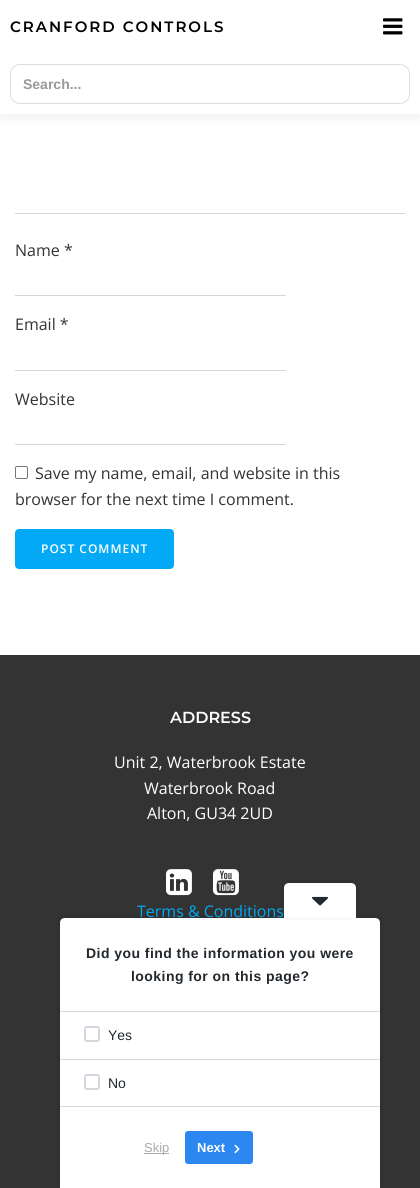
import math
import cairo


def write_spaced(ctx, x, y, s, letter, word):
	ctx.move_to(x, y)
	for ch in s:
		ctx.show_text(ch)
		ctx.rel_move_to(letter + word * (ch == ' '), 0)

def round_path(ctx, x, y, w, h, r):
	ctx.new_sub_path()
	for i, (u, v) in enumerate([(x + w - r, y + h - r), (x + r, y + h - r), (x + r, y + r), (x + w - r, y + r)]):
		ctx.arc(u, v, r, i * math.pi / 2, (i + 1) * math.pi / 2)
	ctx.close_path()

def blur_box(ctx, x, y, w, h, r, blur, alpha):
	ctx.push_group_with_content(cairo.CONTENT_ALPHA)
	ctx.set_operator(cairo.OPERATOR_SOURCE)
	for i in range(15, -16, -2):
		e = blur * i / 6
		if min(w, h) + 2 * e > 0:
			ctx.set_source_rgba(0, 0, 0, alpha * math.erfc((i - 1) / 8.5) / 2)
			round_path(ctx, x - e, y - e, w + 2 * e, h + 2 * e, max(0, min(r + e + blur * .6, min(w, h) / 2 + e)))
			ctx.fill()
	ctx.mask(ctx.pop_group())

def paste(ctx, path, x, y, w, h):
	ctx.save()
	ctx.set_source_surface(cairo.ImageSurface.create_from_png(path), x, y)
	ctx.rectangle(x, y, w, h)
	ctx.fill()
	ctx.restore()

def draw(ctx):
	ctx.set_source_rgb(1, 1, 1)
	ctx.paint()
	ctx.set_source_rgb(0, 0, 0)
	blur_box(ctx, 0, 5, 420, 114, 0, 5, 0.05)
	ctx.set_source_rgb(1, 1, 1)
	ctx.rectangle(0, 1, 420, 113)
	ctx.fill()
	ctx.select_font_face('Montserrat SemiBold')
	ctx.set_font_size(15)
	ctx.set_source_rgb(0, 0, 0)
	write_spaced(ctx, 10, 32, 'CRANFORD CONTROLS', 2, 0)
	paste(ctx, 'media/1.png', 383, 18, 20, 17)
	round_path(ctx, 10.5, 64.5, 399, 39, 9.5)
	ctx.set_source_rgb(0.871, 0.871, 0.871)
	ctx.set_line_width(1)
	ctx.stroke()
	ctx.select_font_face('Liberation Sans', cairo.FONT_SLANT_NORMAL, cairo.FONT_WEIGHT_BOLD)
	ctx.set_font_size(14)
	ctx.set_source_rgb(0.6, 0.6, 0.6)
	ctx.move_to(23, 89)
	ctx.show_text('Search...')
	ctx.set_source_rgb(0.839, 0.839, 0.839)
	ctx.rectangle(15, 213, 390, 1)
	ctx.fill()
	ctx.select_font_face('Open Sans')
	ctx.set_font_size(16)
	ctx.set_source_rgb(0.2, 0.2, 0.2)
	ctx.move_to(15, 256)
	ctx.show_text('Name *')
	ctx.set_source_rgb(0.839, 0.839, 0.839)
	ctx.rectangle(15, 295, 271, 1)
	ctx.fill()
	ctx.set_source_rgb(0.2, 0.2, 0.2)
	ctx.move_to(15, 330)
	ctx.show_text('Email *')
	ctx.set_source_rgb(0.839, 0.839, 0.839)
	ctx.rectangle(15, 370, 271, 1)
	ctx.fill()
	ctx.set_source_rgb(0.2, 0.2, 0.2)
	ctx.move_to(15, 405)
	ctx.show_text('Website')
	ctx.set_source_rgb(0.839, 0.839, 0.839)
	ctx.rectangle(15, 444, 271, 1)
	ctx.fill()
	round_path(ctx, 15.5, 466.5, 12, 12, 1.5)
	ctx.set_source_rgb(0.463, 0.463, 0.463)
	ctx.stroke()
	ctx.set_source_rgb(0.2, 0.2, 0.2)
	ctx.move_to(35, 479)
	ctx.show_text('Save my name, email, and website in this')
	ctx.move_to(15, 505)
	ctx.show_text('browser for the next time I comment.')
	ctx.set_source_rgb(0.012, 0.663, 0.957)
	round_path(ctx, 16, 530, 157, 38, 3)
	ctx.fill_preserve()
	ctx.set_line_width(2)
	ctx.stroke()
	ctx.select_font_face('Open Sans SemiBold')
	ctx.set_font_size(12)
	ctx.set_source_rgb(1, 1, 1)
	write_spaced(ctx, 41, 553, 'POST COMMENT', 1, 0)
	ctx.set_source_rgb(0.2, 0.2, 0.2)
	ctx.rectangle(0, 655, 420, 533)
	ctx.fill()
	ctx.select_font_face('Montserrat SemiBold')
	ctx.set_font_size(16)
	ctx.set_source_rgb(1, 1, 1)
	ctx.move_to(170, 723)
	ctx.show_text('ADDRESS')
	ctx.select_font_face('Open Sans')
	for x, y, s in [
		(114, 768, 'Unit 2, Waterbrook Estate'),
		(144, 794, 'Waterbrook Road'),
		(147, 819, 'Alton, GU34 2UD'),
	]:
		ctx.move_to(x, y)
		ctx.show_text(s)
	paste(ctx, 'media/2.png', 166, 869, 26, 27)
	paste(ctx, 'media/3.png', 213, 869, 26, 27)
	ctx.set_source_rgb(0.012, 0.663, 0.957)
	ctx.move_to(137, 917)
	ctx.show_text('Terms & Conditions')
	ctx.set_source_rgb(0, 0, 0)
	blur_box(ctx, 58, 915, 324, 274, 7, 1.5, 0.07)
	ctx.set_source_rgb(1, 1, 1)
	ctx.new_path()
	ctx.move_to(65, 918)
	ctx.line_to(375, 918)
	ctx.curve_to(378, 918, 380, 920, 380, 923)
	ctx.line_to(380, 1188)
	ctx.line_to(60, 1188)
	ctx.line_to(60, 923)
	ctx.curve_to(60, 920, 62, 918, 65, 918)
	ctx.close_path()
	ctx.fill()
	ctx.set_source_rgb(0, 0, 0)
	blur_box(ctx, 282, 880, 76, 39, 7, 1.5, 0.07)
	ctx.set_source_rgb(1, 1, 1)
	ctx.new_path()
	ctx.move_to(289, 883)
	ctx.line_to(351, 883)
	ctx.curve_to(354, 883, 356, 885, 356, 888)
	ctx.line_to(356, 918)
	ctx.line_to(284, 918)
	ctx.line_to(284, 888)
	ctx.curve_to(284, 885, 286, 883, 289, 883)
	ctx.close_path()
	ctx.fill()
	paste(ctx, 'media/4.png', 312, 896, 16, 10)
	ctx.select_font_face('Liberation Sans', cairo.FONT_SLANT_NORMAL, cairo.FONT_WEIGHT_BOLD)
	ctx.set_font_size(14)
	ctx.set_source_rgb(0.137, 0.157, 0.176)
	write_spaced(ctx, 86, 958, 'Did you find the information you were', 0.45, 0)
	write_spaced(ctx, 131, 981, 'looking for on this page?', 0.45, 0)
	ctx.set_source_rgb(0.851, 0.851, 0.851)
	ctx.rectangle(60, 1011, 320, 1)
	ctx.rectangle(60, 1106, 320, 1)
	ctx.rectangle(60, 1059, 320, 1)
	ctx.fill()
	round_path(ctx, 85, 1027, 14, 14, 2)
	ctx.set_source_rgb(0.827, 0.843, 0.871)
	ctx.stroke()
	ctx.select_font_face('Liberation Sans')
	ctx.set_source_rgb(0.137, 0.157, 0.176)
	ctx.move_to(108, 1040)
	ctx.show_text('Yes')
	round_path(ctx, 85, 1075, 14, 14, 2)
	ctx.set_source_rgb(0.827, 0.843, 0.871)
	ctx.stroke()
	ctx.set_source_rgb(0.137, 0.157, 0.176)
	ctx.move_to(108, 1088)
	ctx.show_text('No')
	ctx.set_source_rgb(0.667, 0.667, 0.667)
	ctx.rectangle(144, 1153, 25, 1)
	ctx.fill()
	ctx.set_font_size(13)
	ctx.move_to(144, 1152)
	ctx.show_text('Skip')
	ctx.set_source_rgb(0.176, 0.529, 0.945)
	round_path(ctx, 185, 1131, 68, 33, 3)
	ctx.fill()
	ctx.select_font_face('Liberation Sans', cairo.FONT_SLANT_NORMAL, cairo.FONT_WEIGHT_BOLD)
	ctx.set_source_rgb(1, 1, 1)
	ctx.move_to(197, 1152)
	ctx.show_text('Next')
	paste(ctx, 'media/5.png', 234, 1144, 6, 10)


surface = cairo.ImageSurface(cairo.FORMAT_RGB24, 420, 1188)
ctx = cairo.Context(surface)
options = cairo.FontOptions()
options.set_hint_metrics(cairo.HINT_METRICS_OFF)
options.set_hint_style(cairo.HINT_STYLE_NONE)
ctx.set_font_options(options)
ctx.set_miter_limit(4)
draw(ctx)
surface.write_to_png('image.png')
